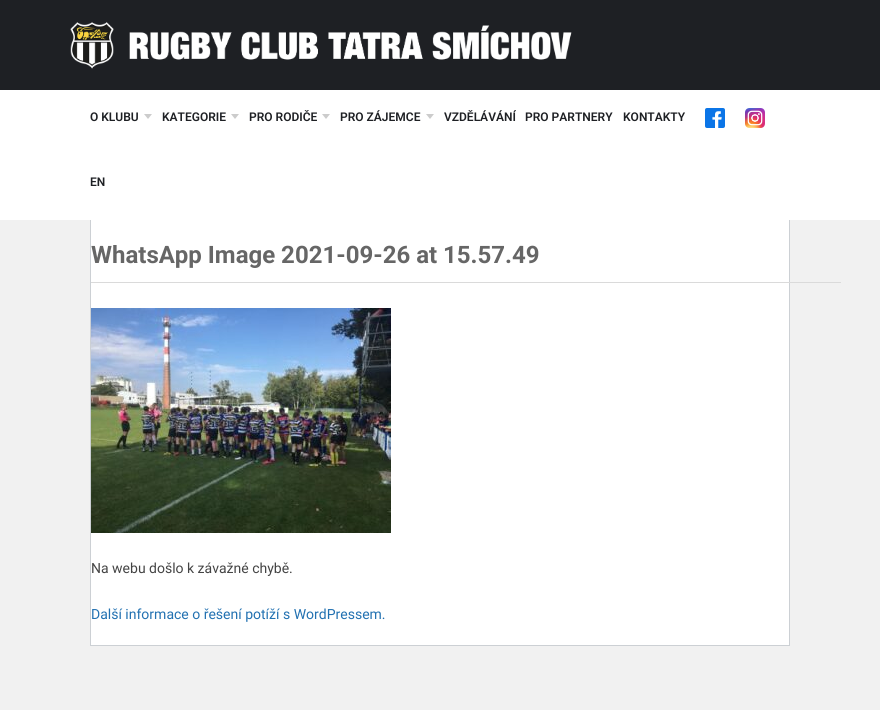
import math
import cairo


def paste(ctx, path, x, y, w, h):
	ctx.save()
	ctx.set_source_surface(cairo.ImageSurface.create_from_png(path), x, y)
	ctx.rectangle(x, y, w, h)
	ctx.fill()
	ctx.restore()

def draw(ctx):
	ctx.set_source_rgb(0.945, 0.945, 0.945)
	ctx.paint()
	ctx.set_source_rgb(1, 1, 1)
	ctx.rectangle(91, 220, 698, 425)
	ctx.fill()
	ctx.rectangle(90.5, 50.5, 699, 595)
	ctx.set_source_rgb(0.8, 0.816, 0.831)
	ctx.set_line_width(1)
	ctx.stroke()
	ctx.set_source_rgb(0.118, 0.125, 0.141)
	ctx.rectangle(0, 0, 880, 90)
	ctx.fill()
	ctx.set_source_rgb(1, 1, 1)
	ctx.rectangle(0, 90, 880, 130)
	ctx.fill()
	paste(ctx, 'media/1.png', 70, 22, 502, 47)
	ctx.select_font_face('Roboto SemiBold')
	ctx.set_font_size(12)
	ctx.set_source_rgb(0.118, 0.125, 0.141)
	ctx.move_to(90, 121)
	ctx.show_text('O KLUBU')
	ctx.set_source_rgb(0.8, 0.8, 0.8)
	ctx.new_path()
	ctx.move_to(144, 114)
	ctx.line_to(152, 114)
	ctx.line_to(148, 119)
	ctx.close_path()
	ctx.fill()
	ctx.set_source_rgb(0.118, 0.125, 0.141)
	ctx.move_to(162, 121)
	ctx.show_text('KATEGORIE')
	ctx.set_source_rgb(0.8, 0.8, 0.8)
	ctx.new_path()
	ctx.move_to(231, 114)
	ctx.line_to(239, 114)
	ctx.line_to(235, 119)
	ctx.close_path()
	ctx.fill()
	ctx.set_source_rgb(0.118, 0.125, 0.141)
	ctx.move_to(249, 121)
	ctx.show_text('PRO RODIČE')
	ctx.set_source_rgb(0.8, 0.8, 0.8)
	ctx.new_path()
	ctx.move_to(322, 114)
	ctx.line_to(330, 114)
	ctx.line_to(326, 119)
	ctx.close_path()
	ctx.fill()
	ctx.set_source_rgb(0.118, 0.125, 0.141)
	ctx.move_to(340, 121)
	ctx.show_text('PRO ZÁJEMCE')
	ctx.set_source_rgb(0.8, 0.8, 0.8)
	ctx.new_path()
	ctx.move_to(426, 114)
	ctx.line_to(434, 114)
	ctx.line_to(430, 119)
	ctx.close_path()
	ctx.fill()
	ctx.set_source_rgb(0.118, 0.125, 0.141)
	for x, y, s in [
		(444, 121, 'VZDĚLÁVÁNÍ'),
		(525, 121, 'PRO PARTNERY'),
		(623, 121, 'KONTAKTY'),
	]:
		ctx.move_to(x, y)
		ctx.show_text(s)
	paste(ctx, 'media/2.png', 705, 108, 20, 20)
	paste(ctx, 'media/3.png', 745, 108, 20, 20)
	ctx.move_to(90, 186)
	ctx.show_text('EN')
	ctx.set_source_rgb(0.855, 0.855, 0.855)
	ctx.rectangle(91, 282, 750, 1)
	ctx.fill()
	ctx.select_font_face('Roboto', cairo.FONT_SLANT_NORMAL, cairo.FONT_WEIGHT_BOLD)
	ctx.set_font_size(24)
	ctx.set_source_rgb(0.4, 0.4, 0.4)
	ctx.move_to(91, 263)
	ctx.show_text('WhatsApp Image 2021-09-26 at 15.57.49')
	paste(ctx, 'media/4.png', 91, 308, 300, 225)
	ctx.select_font_face('Roboto')
	ctx.set_font_size(14)
	ctx.set_source_rgb(0.267, 0.267, 0.267)
	ctx.move_to(91, 573)
	ctx.show_text('Na webu došlo k závažné chybě.')
	ctx.set_source_rgb(0.133, 0.443, 0.694)
	ctx.move_to(91, 619)
	ctx.show_text('Další informace o řešení potíží s WordPressem.')


surface = cairo.ImageSurface(cairo.FORMAT_RGB24, 880, 710)
ctx = cairo.Context(surface)
options = cairo.FontOptions()
options.set_hint_metrics(cairo.HINT_METRICS_OFF)
options.set_hint_style(cairo.HINT_STYLE_NONE)
ctx.set_font_options(options)
ctx.set_miter_limit(4)
draw(ctx)
surface.write_to_png('image.png')
